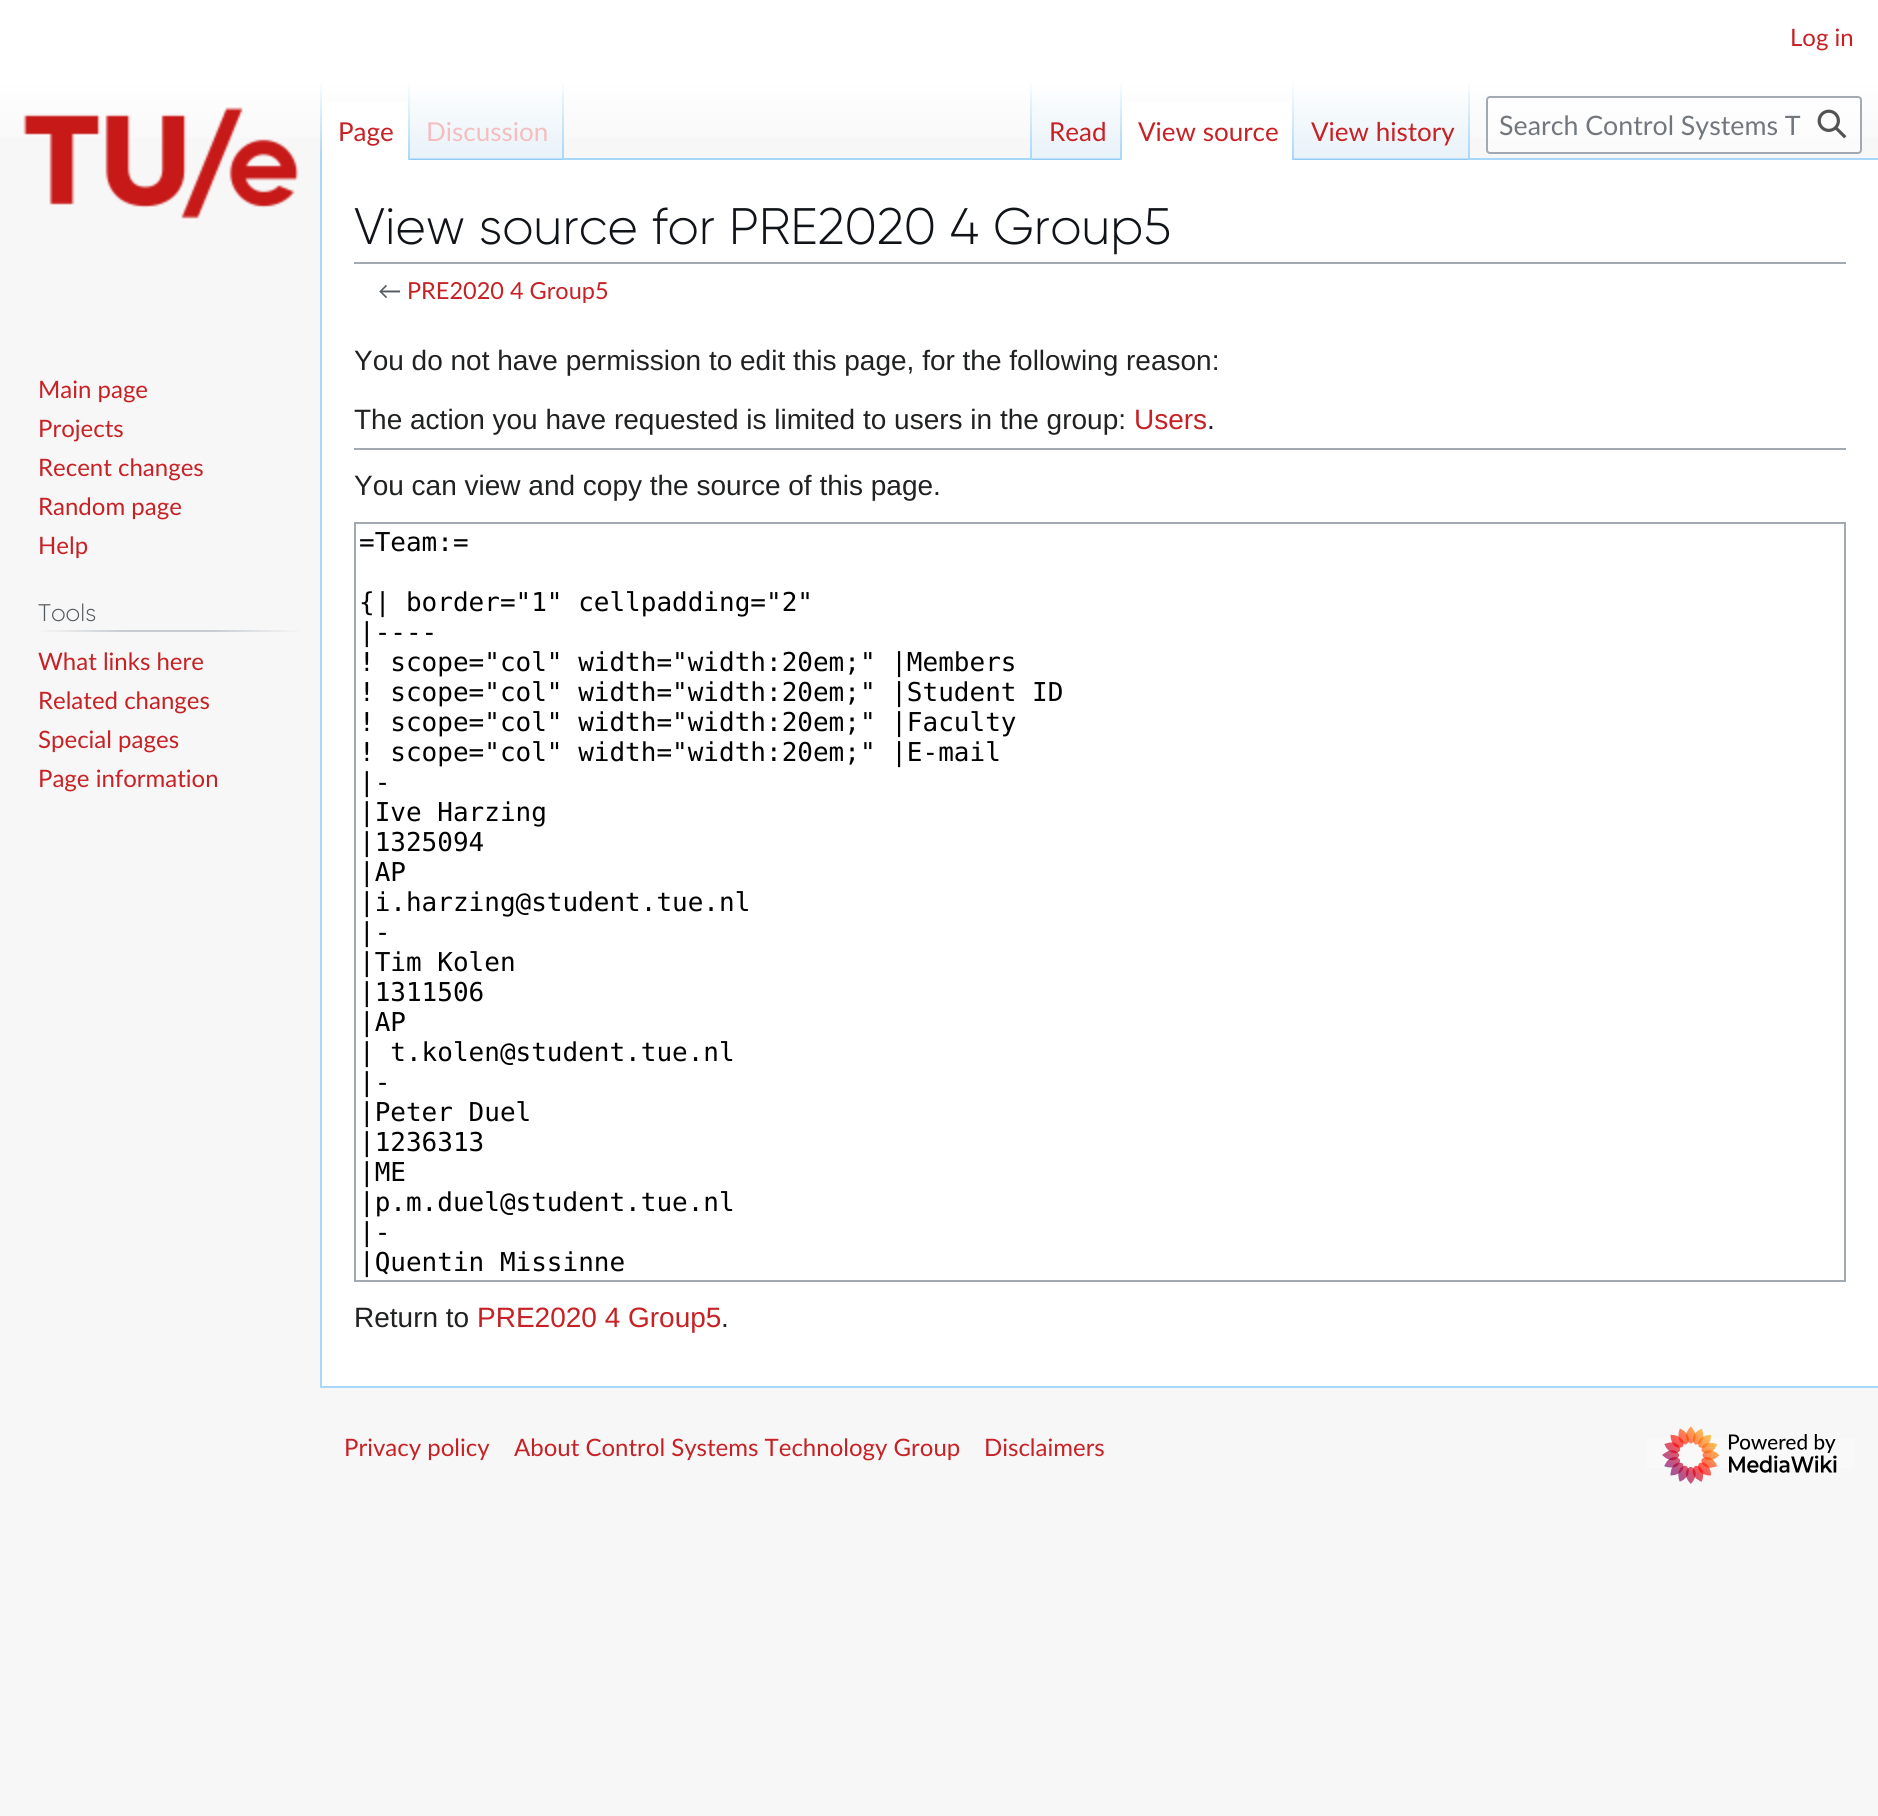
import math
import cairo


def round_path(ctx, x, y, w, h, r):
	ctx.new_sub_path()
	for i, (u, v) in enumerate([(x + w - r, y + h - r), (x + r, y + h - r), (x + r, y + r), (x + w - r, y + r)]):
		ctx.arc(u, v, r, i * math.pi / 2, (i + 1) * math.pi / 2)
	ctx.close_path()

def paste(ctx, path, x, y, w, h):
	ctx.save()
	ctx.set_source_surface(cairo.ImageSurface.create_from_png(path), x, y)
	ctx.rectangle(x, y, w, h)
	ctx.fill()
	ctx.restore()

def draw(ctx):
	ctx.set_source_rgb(0.965, 0.965, 0.965)
	ctx.paint()
	gradient = cairo.LinearGradient(939, 0, 939, 160)
	gradient.add_color_stop_rgba(0.5, 1, 1, 1, 1)
	gradient.add_color_stop_rgba(1, 0.965, 0.965, 0.965, 1)
	ctx.set_source(gradient)
	ctx.rectangle(0, 0, 1878, 138)
	ctx.fill()
	ctx.select_font_face('Lato')
	ctx.set_font_size(24)
	ctx.set_source_rgb(0.78, 0.129, 0.145)
	ctx.move_to(1790, 46)
	ctx.show_text('Log in')
	ctx.set_source_rgb(0.655, 0.843, 0.976)
	ctx.rectangle(320, 1386, 1558, 2)
	ctx.fill()
	ctx.rectangle(320, 158, 2, 1230)
	ctx.fill()
	gradient = cairo.LinearGradient(321, 80, 321, 160)
	gradient.add_color_stop_rgba(0, 0.655, 0.843, 0.976, 0)
	gradient.add_color_stop_rgba(1, 0.655, 0.843, 0.976, 1)
	ctx.set_source(gradient)
	ctx.rectangle(320, 80, 2, 80)
	ctx.fill()
	ctx.set_source_rgb(1, 1, 1)
	ctx.rectangle(322, 102, 86, 58)
	ctx.fill()
	gradient = cairo.LinearGradient(409, 80, 409, 160)
	gradient.add_color_stop_rgba(0, 1, 1, 1, 1)
	gradient.add_color_stop_rgba(1, 0.655, 0.843, 0.976, 1)
	ctx.set_source(gradient)
	ctx.rectangle(408, 80, 2, 80)
	ctx.fill()
	ctx.set_font_size(26)
	ctx.set_source_rgb(0.78, 0.129, 0.145)
	ctx.move_to(338, 141)
	ctx.show_text('Page')
	gradient = cairo.LinearGradient(487, 160, 487, 80)
	gradient.add_color_stop_rgba(0, 0.467, 0.757, 0.965, 1)
	gradient.add_color_stop_rgba(0.03, 0.91, 0.949, 0.973, 1)
	gradient.add_color_stop_rgba(1, 1, 1, 1, 1)
	ctx.set_source(gradient)
	ctx.rectangle(410, 92, 154, 68)
	ctx.fill()
	gradient = cairo.LinearGradient(563, 80, 563, 160)
	gradient.add_color_stop_rgba(0, 0.655, 0.843, 0.976, 0)
	gradient.add_color_stop_rgba(1, 0.655, 0.843, 0.976, 1)
	ctx.set_source(gradient)
	ctx.rectangle(562, 80, 2, 80)
	ctx.fill()
	ctx.set_source_rgb(0.961, 0.741, 0.749)
	ctx.move_to(426, 141)
	ctx.show_text('Discussion')
	ctx.set_source_rgb(0.655, 0.843, 0.976)
	ctx.rectangle(564, 158, 1314, 2)
	ctx.fill()
	gradient = cairo.LinearGradient(1031, 80, 1031, 160)
	gradient.add_color_stop_rgba(0, 0.655, 0.843, 0.976, 0)
	gradient.add_color_stop_rgba(1, 0.655, 0.843, 0.976, 1)
	ctx.set_source(gradient)
	ctx.rectangle(1030, 80, 2, 80)
	ctx.fill()
	gradient = cairo.LinearGradient(1077, 160, 1077, 80)
	gradient.add_color_stop_rgba(0, 0.467, 0.757, 0.965, 1)
	gradient.add_color_stop_rgba(0.03, 0.91, 0.949, 0.973, 1)
	gradient.add_color_stop_rgba(1, 1, 1, 1, 1)
	ctx.set_source(gradient)
	ctx.rectangle(1032, 92, 90, 68)
	ctx.fill()
	gradient = cairo.LinearGradient(1121, 80, 1121, 160)
	gradient.add_color_stop_rgba(0, 0.655, 0.843, 0.976, 0)
	gradient.add_color_stop_rgba(1, 0.655, 0.843, 0.976, 1)
	ctx.set_source(gradient)
	ctx.rectangle(1120, 80, 2, 80)
	ctx.fill()
	ctx.set_source_rgb(0.78, 0.129, 0.145)
	ctx.move_to(1049, 141)
	ctx.show_text('Read')
	ctx.set_source_rgb(1, 1, 1)
	ctx.rectangle(1122, 102, 170, 58)
	ctx.fill()
	gradient = cairo.LinearGradient(1293, 80, 1293, 160)
	gradient.add_color_stop_rgba(0, 1, 1, 1, 1)
	gradient.add_color_stop_rgba(1, 0.655, 0.843, 0.976, 1)
	ctx.set_source(gradient)
	ctx.rectangle(1292, 80, 2, 80)
	ctx.fill()
	ctx.set_source_rgb(0.78, 0.129, 0.145)
	ctx.move_to(1138, 141)
	ctx.show_text('View source')
	gradient = cairo.LinearGradient(1382, 160, 1382, 80)
	gradient.add_color_stop_rgba(0, 0.467, 0.757, 0.965, 1)
	gradient.add_color_stop_rgba(0.03, 0.91, 0.949, 0.973, 1)
	gradient.add_color_stop_rgba(1, 1, 1, 1, 1)
	ctx.set_source(gradient)
	ctx.rectangle(1294, 92, 176, 68)
	ctx.fill()
	gradient = cairo.LinearGradient(1469, 80, 1469, 160)
	gradient.add_color_stop_rgba(0, 0.655, 0.843, 0.976, 0)
	gradient.add_color_stop_rgba(1, 0.655, 0.843, 0.976, 1)
	ctx.set_source(gradient)
	ctx.rectangle(1468, 80, 2, 80)
	ctx.fill()
	ctx.set_source_rgb(0.78, 0.129, 0.145)
	ctx.move_to(1311, 141)
	ctx.show_text('View history')
	ctx.set_source_rgba(1, 1, 1, 0.5)
	round_path(ctx, 1487, 97, 374, 56, 3)
	ctx.fill_preserve()
	ctx.set_source_rgb(0.635, 0.663, 0.694)
	ctx.stroke()
	ctx.set_font_size(26.75)
	ctx.set_source_rgb(0.447, 0.467, 0.49)
	ctx.move_to(1499, 135)
	ctx.show_text('Search Control Systems T')
	paste(ctx, 'media/1.png', 1817, 109, 30, 30)
	paste(ctx, 'media/2.png', 23, 107, 276, 112)
	ctx.set_font_size(24)
	ctx.set_source_rgb(0.78, 0.129, 0.145)
	for x, y, s in [
		(38, 398, 'Main page'),
		(38, 437, 'Projects'),
		(38, 476, 'Recent changes'),
		(38, 515, 'Random page'),
		(38, 554, 'Help'),
	]:
		ctx.move_to(x, y)
		ctx.show_text(s)
	gradient = cairo.LinearGradient(38, 631, 300, 631)
	gradient.add_color_stop_rgba(0, 0.965, 0.965, 0.965, 1)
	gradient.add_color_stop_rgba(0.33, 0.784, 0.8, 0.82, 1)
	gradient.add_color_stop_rgba(0.66, 0.784, 0.8, 0.82, 1)
	gradient.add_color_stop_rgba(1, 0.965, 0.965, 0.965, 1)
	ctx.set_source(gradient)
	ctx.rectangle(38, 630, 262, 2)
	ctx.fill()
	ctx.select_font_face('Gilroy Light')
	ctx.set_source_rgb(0.329, 0.349, 0.365)
	ctx.move_to(38, 621)
	ctx.show_text('Tools')
	ctx.select_font_face('Lato')
	ctx.set_source_rgb(0.78, 0.129, 0.145)
	for x, y, s in [
		(38, 670, 'What links here'),
		(38, 709, 'Related changes'),
		(38, 748, 'Special pages'),
		(38, 787, 'Page information'),
	]:
		ctx.move_to(x, y)
		ctx.show_text(s)
	ctx.set_source_rgb(1, 1, 1)
	ctx.rectangle(322, 160, 1556, 1226)
	ctx.fill()
	ctx.set_source_rgb(0.635, 0.663, 0.694)
	ctx.rectangle(354, 262, 1492, 2)
	ctx.fill()
	ctx.select_font_face('Gilroy Light')
	ctx.set_font_size(51.25)
	ctx.set_source_rgb(0.063, 0.078, 0.094)
	ctx.move_to(354, 244)
	ctx.show_text('View source for PRE2020 4 Group5')
	ctx.select_font_face('Lato')
	ctx.set_font_size(23.5)
	ctx.set_source_rgb(0.329, 0.349, 0.365)
	ctx.move_to(378, 299)
	ctx.show_text('←')
	ctx.set_source_rgb(0.78, 0.129, 0.145)
	ctx.move_to(407, 299)
	ctx.show_text('PRE2020 4 Group5')
	ctx.select_font_face('Liberation Sans')
	ctx.set_font_size(28)
	ctx.set_source_rgb(0.125, 0.129, 0.133)
	ctx.move_to(354, 370)
	ctx.show_text('You do not have permission to edit this page, for the following reason:')
	ctx.move_to(354, 429)
	ctx.show_text('The action you have requested is limited to users in the group:')
	ctx.set_source_rgb(0.78, 0.129, 0.145)
	ctx.move_to(1134, 429)
	ctx.show_text('Users')
	ctx.set_source_rgb(0.125, 0.129, 0.133)
	ctx.move_to(1207, 429)
	ctx.show_text('.')
	ctx.set_source_rgb(0.635, 0.663, 0.694)
	ctx.rectangle(354, 448, 1492, 2)
	ctx.fill()
	ctx.set_source_rgb(0.125, 0.129, 0.133)
	ctx.move_to(354, 495)
	ctx.show_text('You can view and copy the source of this page.')
	ctx.rectangle(355, 523, 1490, 758)
	ctx.set_source_rgb(0.635, 0.663, 0.694)
	ctx.stroke()
	ctx.select_font_face('DejaVu Sans Mono')
	ctx.set_font_size(26)
	ctx.set_source_rgb(0, 0, 0)
	for x, y, s in [
		(359, 551, '=Team:='),
		(359, 611, '{| border="1" cellpadding="2"'),
		(359, 641, '|----'),
		(359, 671, '! scope="col" width="width:20em;" |Members'),
		(359, 701, '! scope="col" width="width:20em;" |Student ID'),
		(359, 731, '! scope="col" width="width:20em;" |Faculty'),
		(359, 761, '! scope="col" width="width:20em;" |E-mail'),
		(359, 791, '|-'),
		(359, 821, '|Ive Harzing'),
		(359, 851, '|1325094'),
		(359, 881, '|AP'),
		(359, 911, '|i.harzing@student.tue.nl'),
		(359, 941, '|-'),
		(359, 971, '|Tim Kolen'),
		(359, 1001, '|1311506'),
		(359, 1031, '|AP'),
		(359, 1061, '| t.kolen@student.tue.nl'),
		(359, 1091, '|-'),
		(359, 1121, '|Peter Duel'),
		(359, 1151, '|1236313'),
		(359, 1181, '|ME'),
		(359, 1211, '|p.m.duel@student.tue.nl'),
		(359, 1241, '|-'),
		(359, 1271, '|Quentin Missinne'),
	]:
		ctx.move_to(x, y)
		ctx.show_text(s)
	ctx.select_font_face('Liberation Sans')
	ctx.set_font_size(28)
	ctx.set_source_rgb(0.125, 0.129, 0.133)
	ctx.move_to(354, 1327)
	ctx.show_text('Return to')
	ctx.set_source_rgb(0.78, 0.129, 0.145)
	ctx.move_to(477, 1327)
	ctx.show_text('PRE2020 4 Group5')
	ctx.set_source_rgb(0.125, 0.129, 0.133)
	ctx.move_to(721, 1327)
	ctx.show_text('.')
	ctx.select_font_face('Lato')
	ctx.set_font_size(24)
	ctx.set_source_rgb(0.78, 0.129, 0.145)
	for x, y, s in [
		(344, 1456, 'Privacy policy'),
		(514, 1456, 'About Control Systems Technology Group'),
		(984, 1456, 'Disclaimers'),
	]:
		ctx.move_to(x, y)
		ctx.show_text(s)
	ctx.set_source_rgb(0.973, 0.976, 0.98)
	ctx.rectangle(1646, 1438, 208, 30)
	ctx.fill()
	paste(ctx, 'media/3.png', 1662, 1426, 175, 58)


surface = cairo.ImageSurface(cairo.FORMAT_RGB24, 1878, 1816)
ctx = cairo.Context(surface)
options = cairo.FontOptions()
options.set_hint_metrics(cairo.HINT_METRICS_OFF)
options.set_hint_style(cairo.HINT_STYLE_NONE)
ctx.set_font_options(options)
ctx.set_miter_limit(4)
draw(ctx)
surface.write_to_png('image.png')
